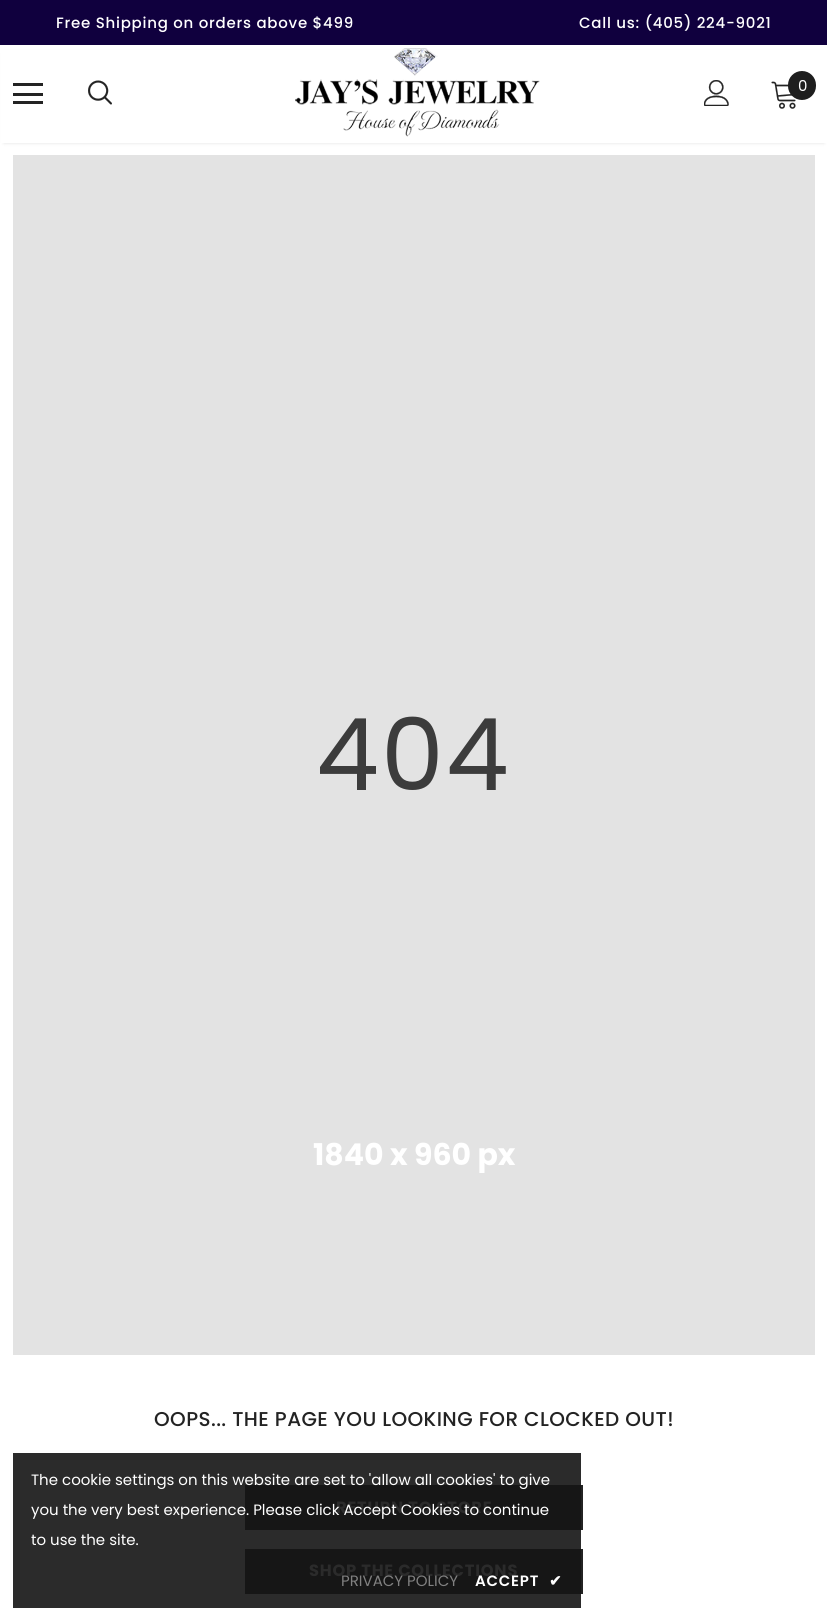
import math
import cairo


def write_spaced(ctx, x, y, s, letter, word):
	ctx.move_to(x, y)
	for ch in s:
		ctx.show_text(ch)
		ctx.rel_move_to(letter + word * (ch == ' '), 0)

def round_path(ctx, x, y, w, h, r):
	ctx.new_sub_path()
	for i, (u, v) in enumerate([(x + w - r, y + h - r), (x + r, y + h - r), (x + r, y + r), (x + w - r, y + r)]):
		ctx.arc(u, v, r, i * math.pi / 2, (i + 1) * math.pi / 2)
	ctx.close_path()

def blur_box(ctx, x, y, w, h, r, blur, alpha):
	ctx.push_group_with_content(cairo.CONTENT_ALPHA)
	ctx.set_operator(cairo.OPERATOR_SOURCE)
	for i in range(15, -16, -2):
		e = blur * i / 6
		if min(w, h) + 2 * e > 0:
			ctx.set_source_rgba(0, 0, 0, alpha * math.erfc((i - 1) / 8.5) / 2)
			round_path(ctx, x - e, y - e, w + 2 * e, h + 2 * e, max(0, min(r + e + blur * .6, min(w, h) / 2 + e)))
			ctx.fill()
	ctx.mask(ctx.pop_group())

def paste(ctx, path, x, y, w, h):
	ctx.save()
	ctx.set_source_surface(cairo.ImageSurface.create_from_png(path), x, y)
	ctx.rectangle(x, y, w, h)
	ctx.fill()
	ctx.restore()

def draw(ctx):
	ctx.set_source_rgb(1, 1, 1)
	ctx.paint()
	ctx.set_source_rgb(0.169, 0.169, 0.169)
	ctx.rectangle(13, 1453, 568, 155)
	ctx.fill()
	ctx.set_source_rgb(0.063, 0, 0.243)
	ctx.rectangle(0, 0, 827, 45)
	ctx.fill()
	ctx.select_font_face('Poppins Medium')
	ctx.set_font_size(15)
	ctx.set_source_rgb(1, 1, 1)
	write_spaced(ctx, 56, 28, 'Free Shipping on orders above $499', 0.75, 0)
	write_spaced(ctx, 579, 28, 'Call us: (405) 224-9021', 0.75, 0)
	ctx.set_source_rgb(0, 0, 0)
	blur_box(ctx, 4, 53, 820, 90, 0, 2, 0.12)
	ctx.set_source_rgb(1, 1, 1)
	ctx.rectangle(1, 50, 826, 93)
	ctx.fill()
	ctx.set_source_rgb(0.137, 0.137, 0.137)
	ctx.rectangle(13, 83, 30, 3)
	ctx.rectangle(13, 93, 30, 3)
	ctx.rectangle(13, 101, 30, 3)
	ctx.fill()
	paste(ctx, 'media/1.png', 88, 80, 24, 25)
	paste(ctx, 'media/2.png', 295, 48, 245, 89)
	paste(ctx, 'media/3.png', 704, 80, 25, 26)
	paste(ctx, 'media/4.png', 771, 81, 25, 28)
	ctx.set_source_rgb(0.118, 0.118, 0.118)
	round_path(ctx, 788, 71, 28, 29, 14)
	ctx.fill()
	ctx.select_font_face('Poppins')
	ctx.set_source_rgb(1, 1, 1)
	ctx.move_to(798, 91)
	ctx.show_text('0')
	ctx.set_source_rgb(0.89, 0.89, 0.89)
	ctx.rectangle(13, 155, 802, 1200)
	ctx.fill()
	ctx.set_font_size(100)
	ctx.set_source_rgb(0.235, 0.235, 0.235)
	write_spaced(ctx, 316, 790, '404', 2, 0)
	ctx.select_font_face('Poppins', cairo.FONT_SLANT_NORMAL, cairo.FONT_WEIGHT_BOLD)
	ctx.set_font_size(30)
	ctx.set_source_rgb(1, 1, 1)
	ctx.move_to(313, 1165)
	ctx.show_text('1840 x 960 px')
	ctx.select_font_face('Poppins Medium')
	ctx.set_font_size(20)
	ctx.set_source_rgb(0.137, 0.137, 0.137)
	write_spaced(ctx, 154, 1426, 'OOPS... THE PAGE YOU LOOKING FOR CLOCKED OUT!', 0.4, 0)
	ctx.rectangle(581, 1485, 2, 45)
	ctx.fill()
	ctx.set_source_rgb(0.086, 0.086, 0.086)
	ctx.rectangle(245, 1485, 336, 45)
	ctx.fill()
	ctx.select_font_face('Poppins', cairo.FONT_SLANT_NORMAL, cairo.FONT_WEIGHT_BOLD)
	ctx.set_font_size(16.25)
	ctx.set_source_rgb(0.169, 0.169, 0.169)
	write_spaced(ctx, 336, 1513, 'RETURN TO STORE', 0.8, 0)
	ctx.set_source_rgb(0.137, 0.137, 0.137)
	ctx.rectangle(581, 1549, 2, 45)
	ctx.fill()
	ctx.set_source_rgb(0.086, 0.086, 0.086)
	ctx.rectangle(245, 1549, 336, 45)
	ctx.fill()
	ctx.set_source_rgb(0.169, 0.169, 0.169)
	write_spaced(ctx, 309, 1576, 'SHOP THE COLLECTIONS', 0.8, 0)
	ctx.select_font_face('Poppins')
	ctx.set_font_size(15)
	ctx.set_source_rgb(1, 1, 1)
	for x, y, s in [
		(31, 1485, 'The cookie settings on this website are set to \'allow all cookies\' to give'),
		(31, 1515, 'you the very best experience. Please click Accept Cookies to continue'),
		(31, 1545, 'to use the site.'),
	]:
		ctx.move_to(x, y)
		ctx.show_text(s)
	ctx.set_source_rgb(0.506, 0.506, 0.506)
	ctx.move_to(341, 1586)
	ctx.show_text('PRIVACY POLICY')
	ctx.select_font_face('Poppins SemiBold')
	ctx.set_source_rgb(1, 1, 1)
	write_spaced(ctx, 475, 1586, 'ACCEPT', 0.75, 0)
	ctx.select_font_face('DejaVu Sans', cairo.FONT_SLANT_NORMAL, cairo.FONT_WEIGHT_BOLD)
	write_spaced(ctx, 549, 1586, '✔', 0.75, 0)


surface = cairo.ImageSurface(cairo.FORMAT_RGB24, 827, 1619)
ctx = cairo.Context(surface)
options = cairo.FontOptions()
options.set_hint_metrics(cairo.HINT_METRICS_OFF)
options.set_hint_style(cairo.HINT_STYLE_NONE)
ctx.set_font_options(options)
ctx.set_miter_limit(4)
draw(ctx)
surface.write_to_png('image.png')
